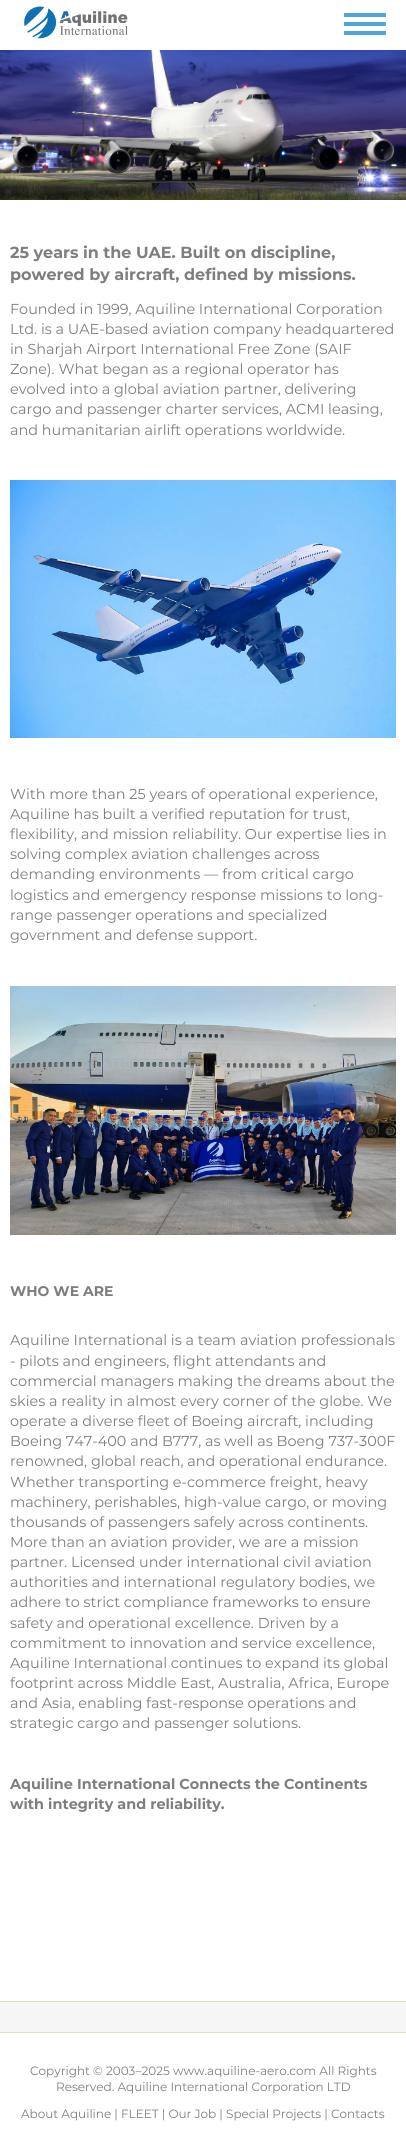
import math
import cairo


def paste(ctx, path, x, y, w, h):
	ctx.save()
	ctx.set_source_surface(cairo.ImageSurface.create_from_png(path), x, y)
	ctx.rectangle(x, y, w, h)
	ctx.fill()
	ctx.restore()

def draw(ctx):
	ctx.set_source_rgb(1, 1, 1)
	ctx.paint()
	paste(ctx, 'media/1.png', 24, 6, 104, 33)
	ctx.set_source_rgb(0.322, 0.647, 0.859)
	ctx.rectangle(344, 13, 42, 4)
	ctx.rectangle(344, 22, 42, 4)
	ctx.rectangle(344, 31, 42, 4)
	ctx.fill()
	paste(ctx, 'media/2.png', 0, 50, 406, 150)
	ctx.select_font_face('Montserrat', cairo.FONT_SLANT_NORMAL, cairo.FONT_WEIGHT_BOLD)
	ctx.set_font_size(16)
	ctx.set_source_rgb(0.494, 0.494, 0.494)
	ctx.move_to(10, 258)
	ctx.show_text('25 years in the UAE. Built on discipline,')
	ctx.move_to(10, 280)
	ctx.show_text('powered by aircraft, defined by missions.')
	ctx.select_font_face('Montserrat')
	ctx.set_font_size(14.4)
	for x, y, s in [
		(10, 314, 'Founded in 1999, Aquiline International Corporation'),
		(10, 334, 'Ltd. is a UAE-based aviation company headquartered'),
		(10, 354, 'in Sharjah Airport International Free Zone (SAIF'),
		(10, 374, 'Zone). What began as a regional operator has'),
		(10, 394, 'evolved into a global aviation partner, delivering'),
		(10, 414, 'cargo and passenger charter services, ACMI leasing,'),
		(10, 435, 'and humanitarian airlift operations worldwide.'),
	]:
		ctx.move_to(x, y)
		ctx.show_text(s)
	paste(ctx, 'media/3.png', 10, 480, 386, 258)
	for x, y, s in [
		(10, 799, 'With more than 25 years of operational experience,'),
		(10, 819, 'Aquiline has built a verified reputation for trust,'),
		(10, 839, 'flexibility, and mission reliability. Our expertise lies in'),
		(10, 859, 'solving complex aviation challenges across'),
		(10, 879, 'demanding environments — from critical cargo'),
		(10, 900, 'logistics and emergency response missions to long-'),
		(10, 920, 'range passenger operations and specialized'),
		(10, 940, 'government and defense support.'),
	]:
		ctx.move_to(x, y)
		ctx.show_text(s)
	paste(ctx, 'media/4.png', 10, 986, 386, 249)
	ctx.select_font_face('Montserrat', cairo.FONT_SLANT_NORMAL, cairo.FONT_WEIGHT_BOLD)
	ctx.set_font_size(14)
	ctx.move_to(10, 1296)
	ctx.show_text('WHO WE ARE')
	ctx.select_font_face('Montserrat')
	ctx.set_font_size(14.4)
	for x, y, s in [
		(10, 1345, 'Aquiline International is a team aviation professionals'),
		(10, 1366, '- pilots and engineers, flight attendants and'),
		(10, 1386, 'commercial managers making the dreams about the'),
		(10, 1406, 'skies a reality in almost every corner of the globe. We'),
		(10, 1426, 'operate a diverse fleet of Boeing aircraft, including'),
		(10, 1446, 'Boeing 747-400 and B777, as well as Boeng 737-300F'),
		(10, 1466, 'renowned, global reach, and operational endurance.'),
		(10, 1487, 'Whether transporting e-commerce freight, heavy'),
		(10, 1507, 'machinery, perishables, high-value cargo, or moving'),
		(10, 1527, 'thousands of passengers safely across continents.'),
		(10, 1547, 'More than an aviation provider, we are a mission'),
		(10, 1567, 'partner. Licensed under international civil aviation'),
		(10, 1587, 'authorities and international regulatory bodies, we'),
		(10, 1607, 'adhere to strict compliance frameworks to ensure'),
		(10, 1628, 'safety and operational excellence. Driven by a'),
		(10, 1648, 'commitment to innovation and service excellence,'),
		(10, 1668, 'Aquiline International continues to expand its global'),
		(10, 1688, 'footprint across Middle East, Australia, Africa, Europe'),
		(10, 1708, 'and Asia, enabling fast-response operations and'),
		(10, 1728, 'strategic cargo and passenger solutions.'),
	]:
		ctx.move_to(x, y)
		ctx.show_text(s)
	ctx.select_font_face('Montserrat', cairo.FONT_SLANT_NORMAL, cairo.FONT_WEIGHT_BOLD)
	ctx.move_to(10, 1789)
	ctx.show_text('Aquiline International Connects the Continents')
	ctx.move_to(10, 1809)
	ctx.show_text('with integrity and reliability.')
	ctx.set_source_rgb(0.961, 0.961, 0.965)
	ctx.rectangle(0, 2002, 406, 30)
	ctx.fill()
	ctx.set_source_rgb(0.863, 0.859, 0.78)
	ctx.rectangle(0, 2001, 406, 1)
	ctx.rectangle(0, 2032, 406, 1)
	ctx.fill()
	ctx.select_font_face('Montserrat')
	ctx.set_font_size(12)
	ctx.set_source_rgb(0.494, 0.494, 0.494)
	for x, y, s in [
		(30, 2075, 'Copyright © 2003–2025 www.aquiline-aero.com All Rights'),
		(56, 2091, 'Reserved. Aquiline International Corporation LTD'),
		(21, 2118, 'About Aquiline | FLEET | Our Job | Special Projects | Contacts'),
	]:
		ctx.move_to(x, y)
		ctx.show_text(s)


surface = cairo.ImageSurface(cairo.FORMAT_RGB24, 406, 2152)
ctx = cairo.Context(surface)
options = cairo.FontOptions()
options.set_hint_metrics(cairo.HINT_METRICS_OFF)
options.set_hint_style(cairo.HINT_STYLE_NONE)
ctx.set_font_options(options)
ctx.set_miter_limit(4)
draw(ctx)
surface.write_to_png('image.png')
